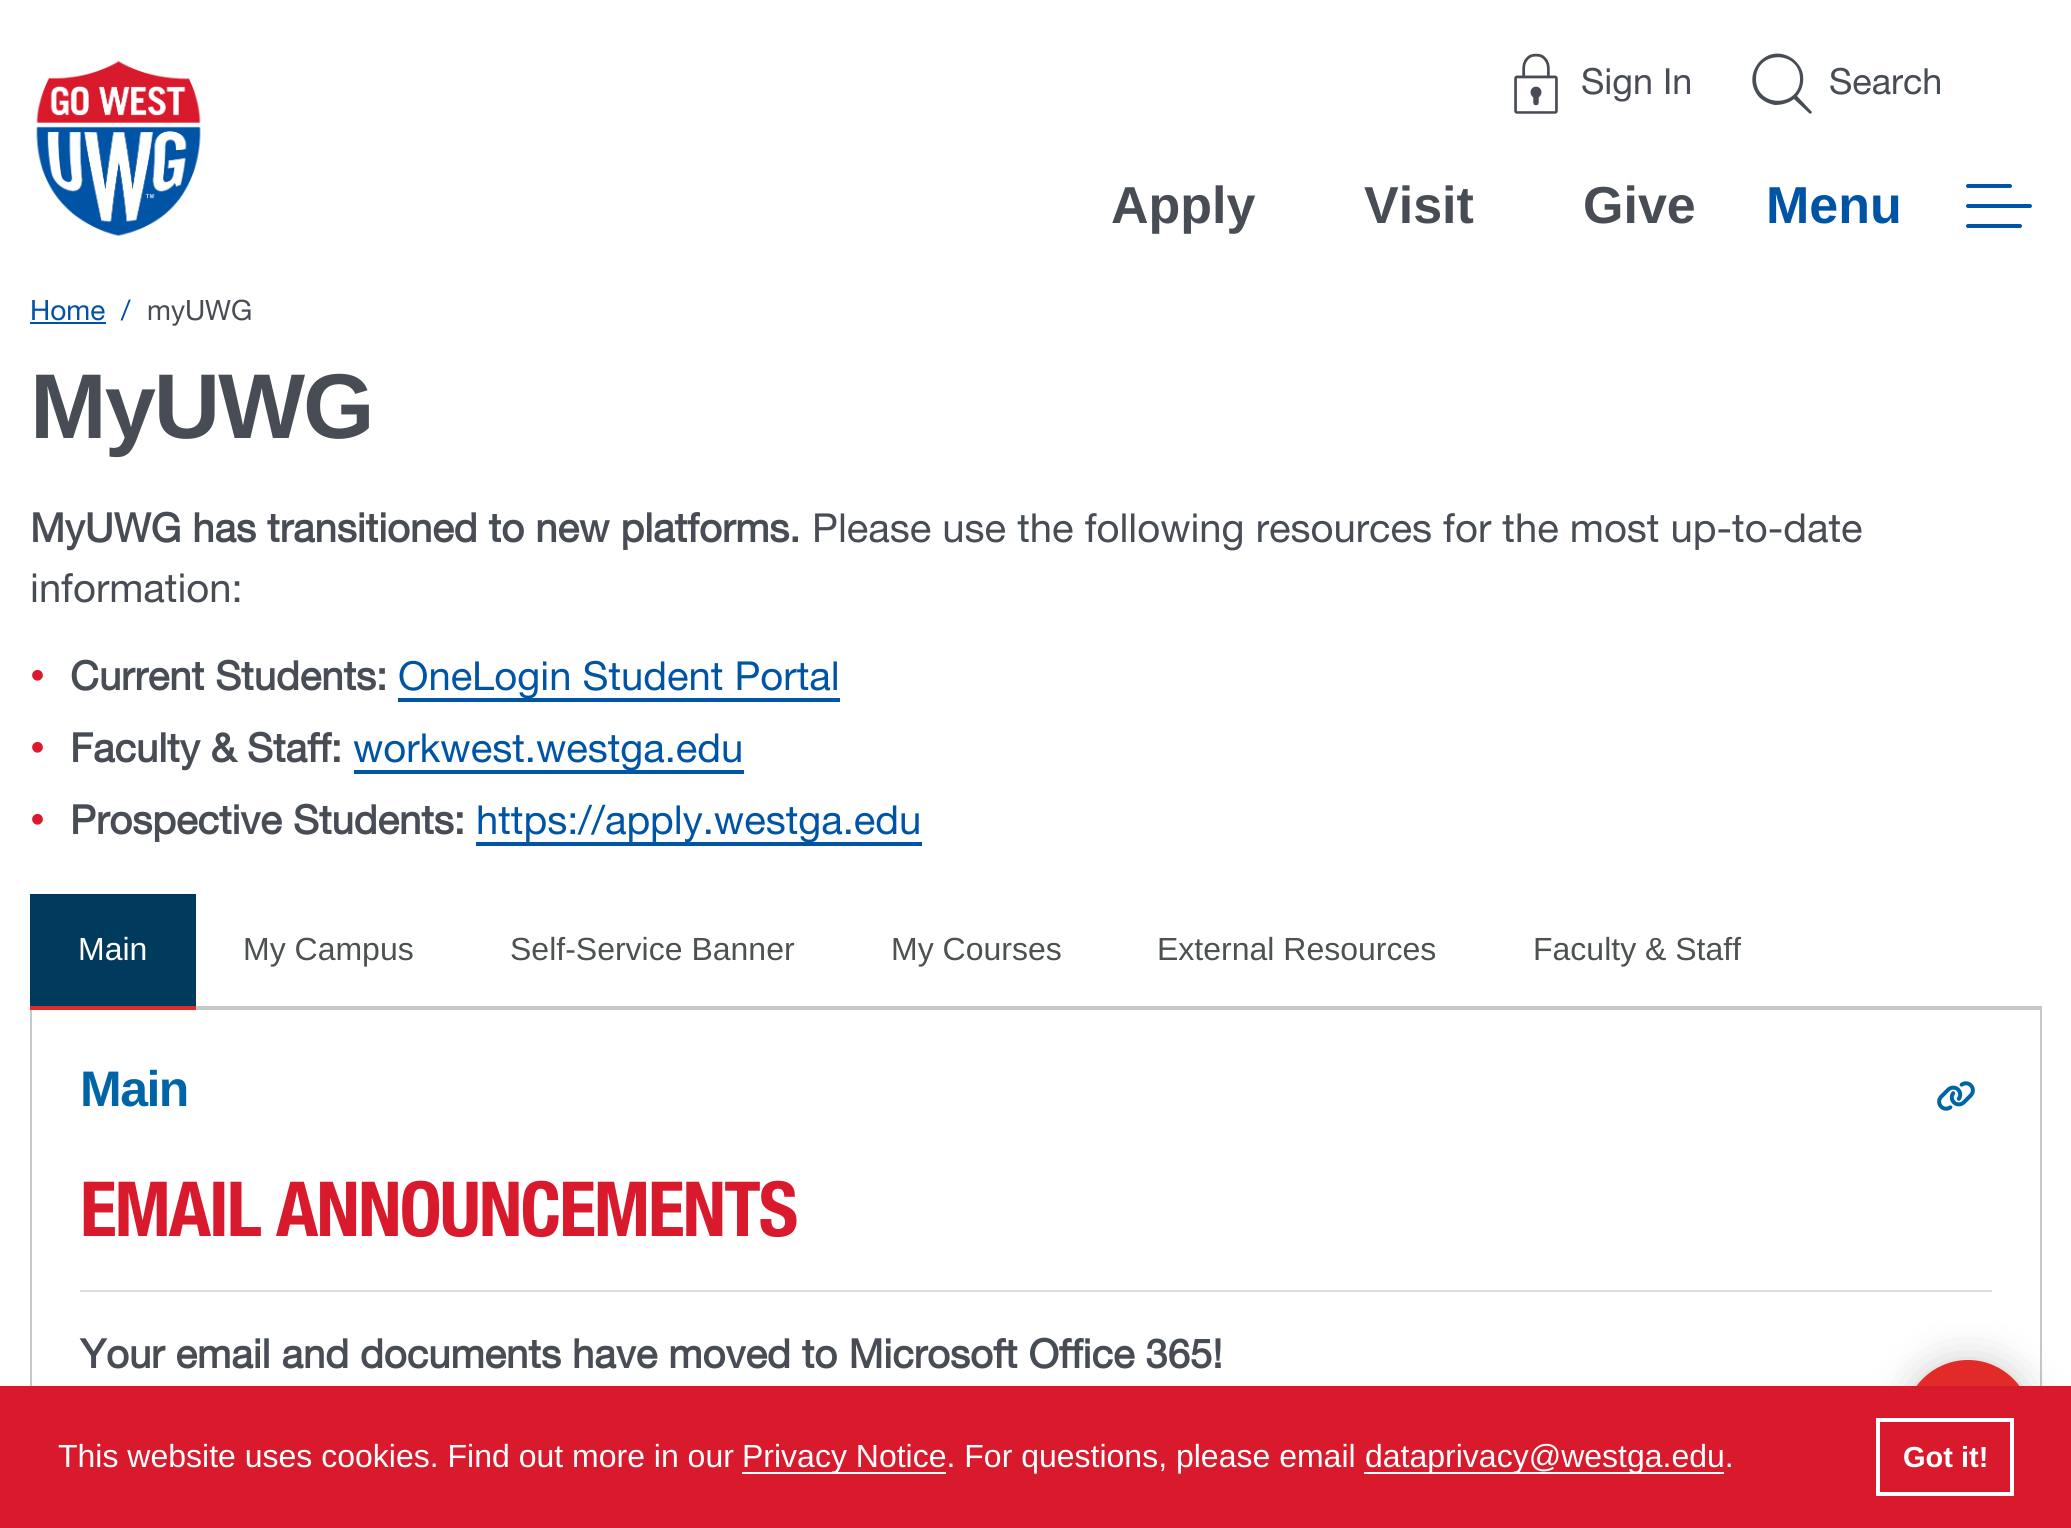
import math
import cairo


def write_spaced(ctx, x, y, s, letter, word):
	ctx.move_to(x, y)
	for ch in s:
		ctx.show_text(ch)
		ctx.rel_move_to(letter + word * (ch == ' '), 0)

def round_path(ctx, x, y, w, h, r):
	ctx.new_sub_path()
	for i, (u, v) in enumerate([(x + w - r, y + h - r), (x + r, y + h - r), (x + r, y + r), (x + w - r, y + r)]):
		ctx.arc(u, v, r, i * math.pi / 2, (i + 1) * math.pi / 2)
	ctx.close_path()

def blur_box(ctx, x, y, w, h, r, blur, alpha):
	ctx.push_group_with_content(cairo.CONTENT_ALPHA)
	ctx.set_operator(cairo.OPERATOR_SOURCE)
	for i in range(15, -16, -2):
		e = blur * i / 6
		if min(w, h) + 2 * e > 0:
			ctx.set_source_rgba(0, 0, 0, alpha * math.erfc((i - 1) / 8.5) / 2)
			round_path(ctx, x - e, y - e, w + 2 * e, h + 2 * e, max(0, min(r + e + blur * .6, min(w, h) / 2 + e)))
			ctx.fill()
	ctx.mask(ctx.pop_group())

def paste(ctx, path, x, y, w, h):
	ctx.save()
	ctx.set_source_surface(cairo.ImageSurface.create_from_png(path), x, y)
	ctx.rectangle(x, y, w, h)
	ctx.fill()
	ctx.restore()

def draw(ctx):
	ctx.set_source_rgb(1, 1, 1)
	ctx.paint()
	paste(ctx, 'media/1.png', 36, 60, 165, 177)
	paste(ctx, 'media/2.png', 1514, 53, 44, 61)
	ctx.select_font_face('Helvetica Neue')
	ctx.set_font_size(36)
	ctx.set_source_rgb(0.278, 0.298, 0.333)
	ctx.move_to(1581, 94)
	ctx.show_text('Sign In')
	ctx.new_path()
	ctx.move_to(1811, 111)
	ctx.line_to(1797, 96)
	ctx.curve_to(1802, 90, 1804, 83, 1803, 75)
	ctx.curve_to(1802, 68, 1797, 61, 1790, 57)
	ctx.curve_to(1765, 43, 1740, 75, 1759, 97)
	ctx.curve_to(1763, 101, 1769, 104, 1775, 105)
	ctx.curve_to(1782, 105, 1789, 103, 1794, 99)
	ctx.line_to(1809, 113)
	ctx.curve_to(1811, 115, 1813, 112, 1811, 111)
	ctx.close_path()
	ctx.move_to(1756, 79)
	ctx.curve_to(1756, 50, 1800, 50, 1800, 79)
	ctx.curve_to(1800, 108, 1756, 108, 1756, 79)
	ctx.close_path()
	ctx.fill()
	ctx.move_to(1829, 94)
	ctx.show_text('Search')
	ctx.select_font_face('Liberation Sans', cairo.FONT_SLANT_NORMAL, cairo.FONT_WEIGHT_BOLD)
	ctx.set_font_size(52)
	for x, y, s in [
		(1111, 223, 'Apply'),
		(1364, 223, 'Visit'),
		(1583, 223, 'Give'),
	]:
		ctx.move_to(x, y)
		ctx.show_text(s)
	ctx.set_source_rgb(0, 0.329, 0.651)
	ctx.move_to(1766, 223)
	ctx.show_text('Menu')
	round_path(ctx, 1966, 184, 46, 4, 2)
	ctx.fill()
	round_path(ctx, 1966, 204, 66, 4, 2)
	ctx.fill()
	round_path(ctx, 1966, 224, 56, 4, 2)
	ctx.fill()
	ctx.select_font_face('Helvetica Neue')
	ctx.set_font_size(28)
	ctx.move_to(30, 320)
	ctx.show_text('Home')
	ctx.rectangle(30, 322, 76, 2)
	ctx.fill()
	ctx.move_to(121, 320)
	ctx.show_text('/')
	ctx.set_source_rgb(0.278, 0.298, 0.333)
	ctx.move_to(147, 320)
	ctx.show_text('myUWG')
	ctx.select_font_face('Liberation Sans', cairo.FONT_SLANT_NORMAL, cairo.FONT_WEIGHT_BOLD)
	ctx.set_font_size(92)
	write_spaced(ctx, 30, 438, 'MyUWG', -2, 0)
	ctx.select_font_face('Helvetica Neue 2', cairo.FONT_SLANT_NORMAL, cairo.FONT_WEIGHT_BOLD)
	ctx.set_font_size(40)
	ctx.move_to(30, 542)
	ctx.show_text('MyUWG has transitioned to new platforms.')
	ctx.select_font_face('Helvetica Neue')
	ctx.move_to(812, 542)
	ctx.show_text('Please use the following resources for the most up-to-date')
	ctx.move_to(30, 602)
	ctx.show_text('information:')
	ctx.set_font_size(30)
	ctx.set_source_rgb(0.851, 0.098, 0.173)
	ctx.move_to(30, 686)
	ctx.show_text('•')
	ctx.select_font_face('Helvetica Neue 2', cairo.FONT_SLANT_NORMAL, cairo.FONT_WEIGHT_BOLD)
	ctx.set_font_size(40)
	ctx.set_source_rgb(0.278, 0.298, 0.333)
	ctx.move_to(70, 690)
	ctx.show_text('Current Students:')
	ctx.set_source_rgb(0, 0.329, 0.651)
	ctx.rectangle(398, 698, 442, 4)
	ctx.fill()
	ctx.select_font_face('Helvetica Neue')
	ctx.move_to(398, 690)
	ctx.show_text('OneLogin Student Portal')
	ctx.set_font_size(30)
	ctx.set_source_rgb(0.851, 0.098, 0.173)
	ctx.move_to(30, 758)
	ctx.show_text('•')
	ctx.select_font_face('Helvetica Neue 2', cairo.FONT_SLANT_NORMAL, cairo.FONT_WEIGHT_BOLD)
	ctx.set_font_size(40)
	ctx.set_source_rgb(0.278, 0.298, 0.333)
	ctx.move_to(70, 762)
	ctx.show_text('Faculty & Staff:')
	ctx.set_source_rgb(0, 0.329, 0.651)
	ctx.rectangle(354, 770, 390, 4)
	ctx.fill()
	ctx.select_font_face('Helvetica Neue')
	ctx.move_to(353, 762)
	ctx.show_text('workwest.westga.edu')
	ctx.set_font_size(30)
	ctx.set_source_rgb(0.851, 0.098, 0.173)
	ctx.move_to(30, 830)
	ctx.show_text('•')
	ctx.select_font_face('Helvetica Neue 2', cairo.FONT_SLANT_NORMAL, cairo.FONT_WEIGHT_BOLD)
	ctx.set_font_size(40)
	ctx.set_source_rgb(0.278, 0.298, 0.333)
	ctx.move_to(70, 834)
	ctx.show_text('Prospective Students:')
	ctx.set_source_rgb(0, 0.329, 0.651)
	ctx.rectangle(476, 842, 446, 4)
	ctx.fill()
	ctx.select_font_face('Helvetica Neue')
	ctx.move_to(476, 834)
	ctx.show_text('https://apply.westga.edu')
	ctx.set_source_rgb(0.78, 0.784, 0.792)
	ctx.rectangle(196, 1006, 1846, 4)
	ctx.fill()
	ctx.set_source_rgb(0, 0.227, 0.365)
	ctx.rectangle(30, 894, 166, 112)
	ctx.fill()
	ctx.select_font_face('Liberation Sans')
	ctx.set_font_size(32)
	ctx.set_source_rgb(1, 1, 1)
	ctx.move_to(78, 960)
	ctx.show_text('Main')
	ctx.set_source_rgb(0.886, 0.169, 0.157)
	ctx.rectangle(30, 1006, 166, 4)
	ctx.fill()
	ctx.set_source_rgb(0.302, 0.318, 0.322)
	for x, y, s in [
		(243, 960, 'My Campus'),
		(510, 960, 'Self-Service Banner'),
		(891, 960, 'My Courses'),
		(1157, 960, 'External Resources'),
		(1533, 960, 'Faculty & Staff'),
	]:
		ctx.move_to(x, y)
		ctx.show_text(s)
	ctx.set_source_rgb(0.78, 0.784, 0.792)
	ctx.rectangle(2040, 1010, 2, 376)
	ctx.fill()
	ctx.rectangle(30, 1010, 2, 376)
	ctx.fill()
	ctx.select_font_face('Liberation Sans', cairo.FONT_SLANT_NORMAL, cairo.FONT_WEIGHT_BOLD)
	ctx.set_font_size(50)
	ctx.set_source_rgb(0, 0.396, 0.651)
	write_spaced(ctx, 80, 1106, 'Main', -1.5, 0)
	paste(ctx, 'media/3.png', 1937, 1081, 38, 30)
	ctx.select_font_face('Helvetica Neue', cairo.FONT_SLANT_NORMAL, cairo.FONT_WEIGHT_BOLD)
	ctx.set_font_size(76)
	ctx.set_source_rgb(0.851, 0.098, 0.173)
	write_spaced(ctx, 80, 1236, 'EMAIL ANNOUNCEMENTS', -2, 0)
	ctx.set_source_rgb(0.867, 0.867, 0.867)
	ctx.rectangle(80, 1290, 1912, 2)
	ctx.fill()
	ctx.select_font_face('Helvetica Neue 2', cairo.FONT_SLANT_NORMAL, cairo.FONT_WEIGHT_BOLD)
	ctx.set_font_size(40)
	ctx.set_source_rgb(0.278, 0.298, 0.333)
	ctx.move_to(80, 1368)
	ctx.show_text('Your email and documents have moved to Microsoft Office 365!')
	ctx.set_source_rgb(0, 0, 0)
	blur_box(ctx, 1904, 1360, 128, 128, 64, 20, 0.2)
	ctx.set_source_rgb(0.886, 0.169, 0.157)
	ctx.arc(1968, 1424, 62, 0, 2 * math.pi)
	ctx.fill_preserve()
	ctx.set_line_width(4)
	ctx.stroke()
	ctx.set_source_rgb(0.851, 0.098, 0.173)
	ctx.rectangle(0, 1386, 2071, 142)
	ctx.fill()
	ctx.select_font_face('Liberation Sans')
	ctx.set_font_size(32)
	ctx.set_source_rgb(1, 1, 1)
	ctx.move_to(58, 1467)
	ctx.show_text('This website uses cookies. Find out more in our')
	ctx.rectangle(742, 1472, 204, 2)
	ctx.fill()
	ctx.move_to(742, 1467)
	ctx.show_text('Privacy Notice. For questions, please email')
	ctx.rectangle(1364, 1472, 360, 2)
	ctx.fill()
	ctx.move_to(1365, 1467)
	ctx.show_text('dataprivacy@westga.edu.')
	ctx.rectangle(1878, 1420, 134, 74)
	ctx.stroke()
	ctx.select_font_face('Liberation Sans', cairo.FONT_SLANT_NORMAL, cairo.FONT_WEIGHT_BOLD)
	ctx.set_font_size(29)
	ctx.move_to(1903, 1467)
	ctx.show_text('Got it!')


surface = cairo.ImageSurface(cairo.FORMAT_RGB24, 2071, 1528)
ctx = cairo.Context(surface)
options = cairo.FontOptions()
options.set_hint_metrics(cairo.HINT_METRICS_OFF)
options.set_hint_style(cairo.HINT_STYLE_NONE)
ctx.set_font_options(options)
ctx.set_miter_limit(4)
draw(ctx)
surface.write_to_png('image.png')
